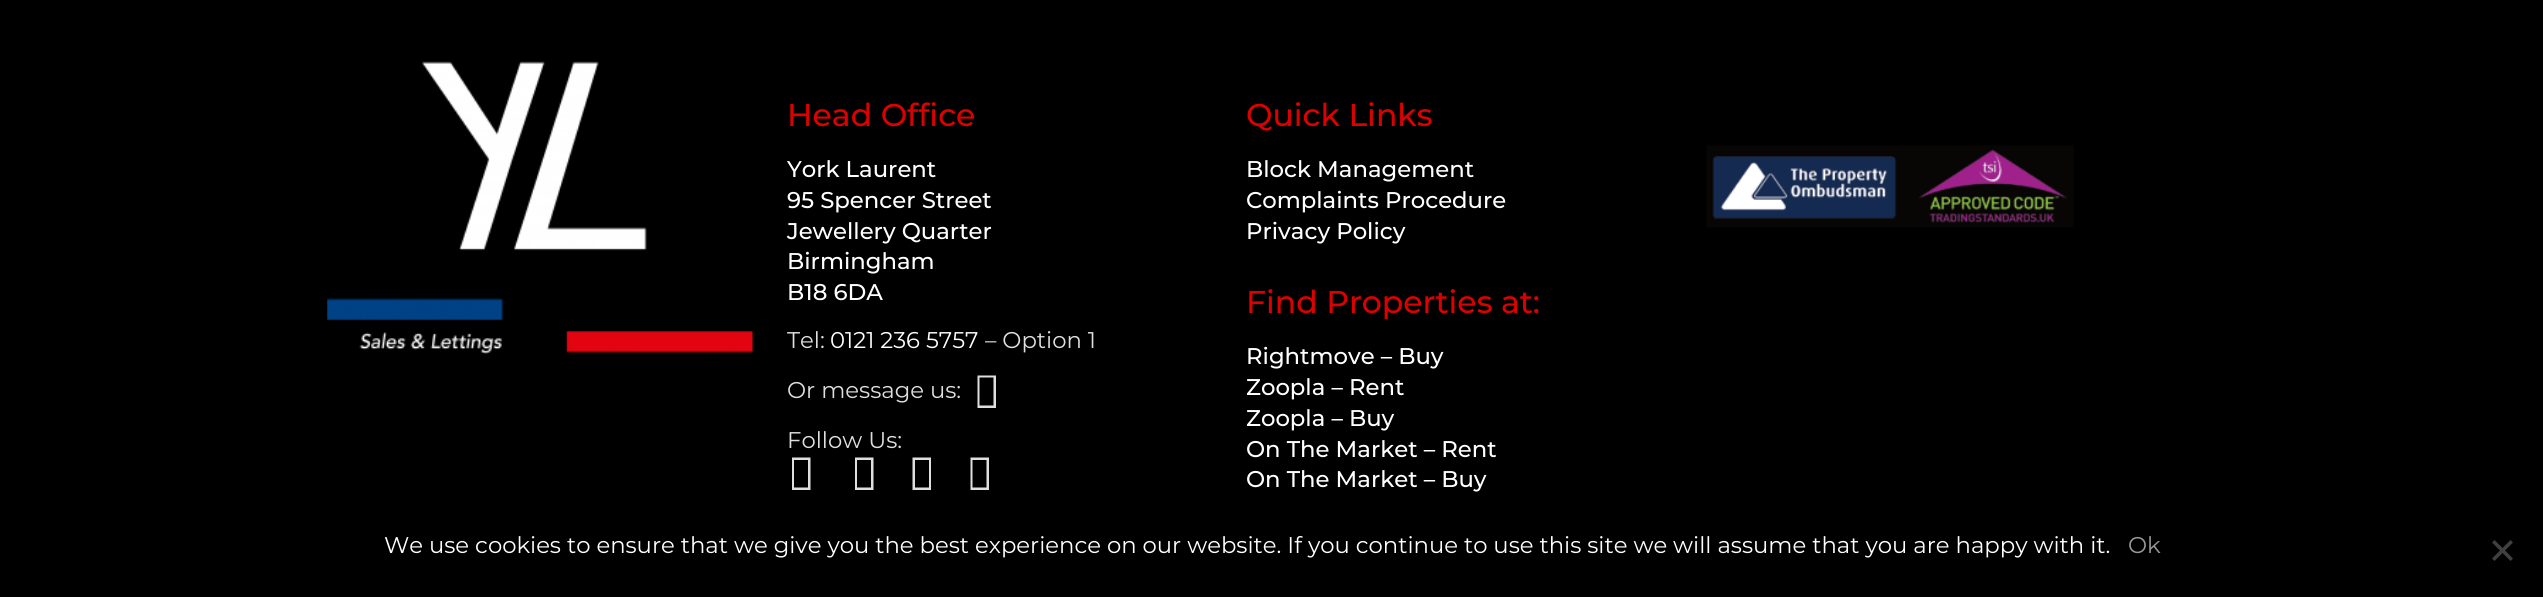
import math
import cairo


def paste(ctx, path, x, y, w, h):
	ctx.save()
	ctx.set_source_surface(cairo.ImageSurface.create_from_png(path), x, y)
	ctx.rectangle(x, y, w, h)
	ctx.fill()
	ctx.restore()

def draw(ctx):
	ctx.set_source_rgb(0, 0, 0)
	ctx.paint()
	paste(ctx, 'media/1.png', 327, 61, 426, 293)
	ctx.select_font_face('Montserrat Medium')
	ctx.set_font_size(31.5)
	ctx.set_source_rgb(0.867, 0, 0)
	ctx.move_to(787, 126)
	ctx.show_text('Head Office')
	ctx.set_font_size(22.75)
	ctx.set_source_rgb(1, 1, 1)
	for x, y, s in [
		(787, 177, 'York Laurent'),
		(787, 208, '95 Spencer Street'),
		(787, 239, 'Jewellery Quarter'),
		(787, 269, 'Birmingham'),
		(787, 300, 'B18 6DA'),
	]:
		ctx.move_to(x, y)
		ctx.show_text(s)
	ctx.select_font_face('Montserrat')
	ctx.set_source_rgb(0.875, 0.875, 0.875)
	ctx.move_to(787, 348)
	ctx.show_text('Tel:')
	ctx.set_source_rgb(1, 1, 1)
	ctx.move_to(830, 348)
	ctx.show_text('0121 236 5757')
	ctx.set_source_rgb(0.875, 0.875, 0.875)
	ctx.move_to(985, 348)
	ctx.show_text('– Option 1')
	ctx.move_to(787, 398)
	ctx.show_text('Or message us:')
	ctx.new_path()
	ctx.move_to(977.5, 408)
	ctx.line_to(977.5, 375.5)
	ctx.line_to(996, 375.5)
	ctx.line_to(996, 408)
	ctx.close_path()
	ctx.move_to(979.5, 405.5)
	ctx.line_to(993.5, 405.5)
	ctx.line_to(993.5, 377.5)
	ctx.line_to(979.5, 377.5)
	ctx.close_path()
	ctx.fill()
	ctx.move_to(787, 448)
	ctx.show_text('Follow Us:')
	ctx.new_path()
	ctx.move_to(792, 490)
	ctx.line_to(792, 457.5)
	ctx.line_to(810.5, 457.5)
	ctx.line_to(810.5, 490)
	ctx.close_path()
	ctx.move_to(794, 487.5)
	ctx.line_to(808, 487.5)
	ctx.line_to(808, 460)
	ctx.line_to(794, 460)
	ctx.close_path()
	ctx.fill()
	ctx.new_path()
	ctx.move_to(855, 490)
	ctx.line_to(855, 457.5)
	ctx.line_to(873.5, 457.5)
	ctx.line_to(873.5, 490)
	ctx.close_path()
	ctx.move_to(857, 487.5)
	ctx.line_to(871, 487.5)
	ctx.line_to(871, 460)
	ctx.line_to(857, 460)
	ctx.close_path()
	ctx.fill()
	ctx.new_path()
	ctx.move_to(912.5, 490)
	ctx.line_to(912.5, 457.5)
	ctx.line_to(931, 457.5)
	ctx.line_to(931, 490)
	ctx.close_path()
	ctx.move_to(915, 487.5)
	ctx.line_to(929, 487.5)
	ctx.line_to(929, 460)
	ctx.line_to(915, 460)
	ctx.close_path()
	ctx.fill()
	ctx.new_path()
	ctx.move_to(970.5, 490)
	ctx.line_to(970.5, 457.5)
	ctx.line_to(989, 457.5)
	ctx.line_to(989, 490)
	ctx.close_path()
	ctx.move_to(972.5, 487.5)
	ctx.line_to(986.5, 487.5)
	ctx.line_to(986.5, 460)
	ctx.line_to(972.5, 460)
	ctx.close_path()
	ctx.fill()
	ctx.select_font_face('Montserrat Medium')
	ctx.set_font_size(31.5)
	ctx.set_source_rgb(0.867, 0, 0)
	ctx.move_to(1246, 126)
	ctx.show_text('Quick Links')
	ctx.set_font_size(22.75)
	ctx.set_source_rgb(1, 1, 1)
	for x, y, s in [
		(1246, 177, 'Block Management'),
		(1246, 208, 'Complaints Procedure'),
		(1246, 239, 'Privacy Policy'),
	]:
		ctx.move_to(x, y)
		ctx.show_text(s)
	ctx.set_font_size(31.5)
	ctx.set_source_rgb(0.867, 0, 0)
	ctx.move_to(1246, 313)
	ctx.show_text('Find Properties at:')
	ctx.set_font_size(22.75)
	ctx.set_source_rgb(1, 1, 1)
	for x, y, s in [
		(1246, 364, 'Rightmove – Buy'),
		(1246, 395, 'Zoopla – Rent'),
		(1246, 426, 'Zoopla – Buy'),
		(1246, 457, 'On The Market – Rent'),
		(1246, 487, 'On The Market – Buy'),
	]:
		ctx.move_to(x, y)
		ctx.show_text(s)
	paste(ctx, 'media/2.png', 1706, 145, 368, 83)
	ctx.select_font_face('Montserrat')
	ctx.move_to(384, 553)
	ctx.show_text('We use cookies to ensure that we give you the best experience on our website. If you continue to use this site we will assume that you are happy with it.')
	ctx.set_source_rgb(0.6, 0.6, 0.6)
	ctx.move_to(2128, 553)
	ctx.show_text('Ok')
	ctx.set_source_rgb(0.251, 0.251, 0.251)
	ctx.new_path()
	ctx.move_to(2510.5, 540)
	ctx.line_to(2513, 542.5)
	ctx.line_to(2494.5, 561)
	ctx.line_to(2492, 558.5)
	ctx.close_path()
	ctx.fill()
	ctx.new_path()
	ctx.move_to(2492, 542.5)
	ctx.line_to(2494.5, 540)
	ctx.line_to(2513, 558.5)
	ctx.line_to(2510.5, 561)
	ctx.close_path()
	ctx.fill()


surface = cairo.ImageSurface(cairo.FORMAT_RGB24, 2543, 597)
ctx = cairo.Context(surface)
options = cairo.FontOptions()
options.set_hint_metrics(cairo.HINT_METRICS_OFF)
options.set_hint_style(cairo.HINT_STYLE_NONE)
ctx.set_font_options(options)
ctx.set_miter_limit(4)
draw(ctx)
surface.write_to_png('image.png')
